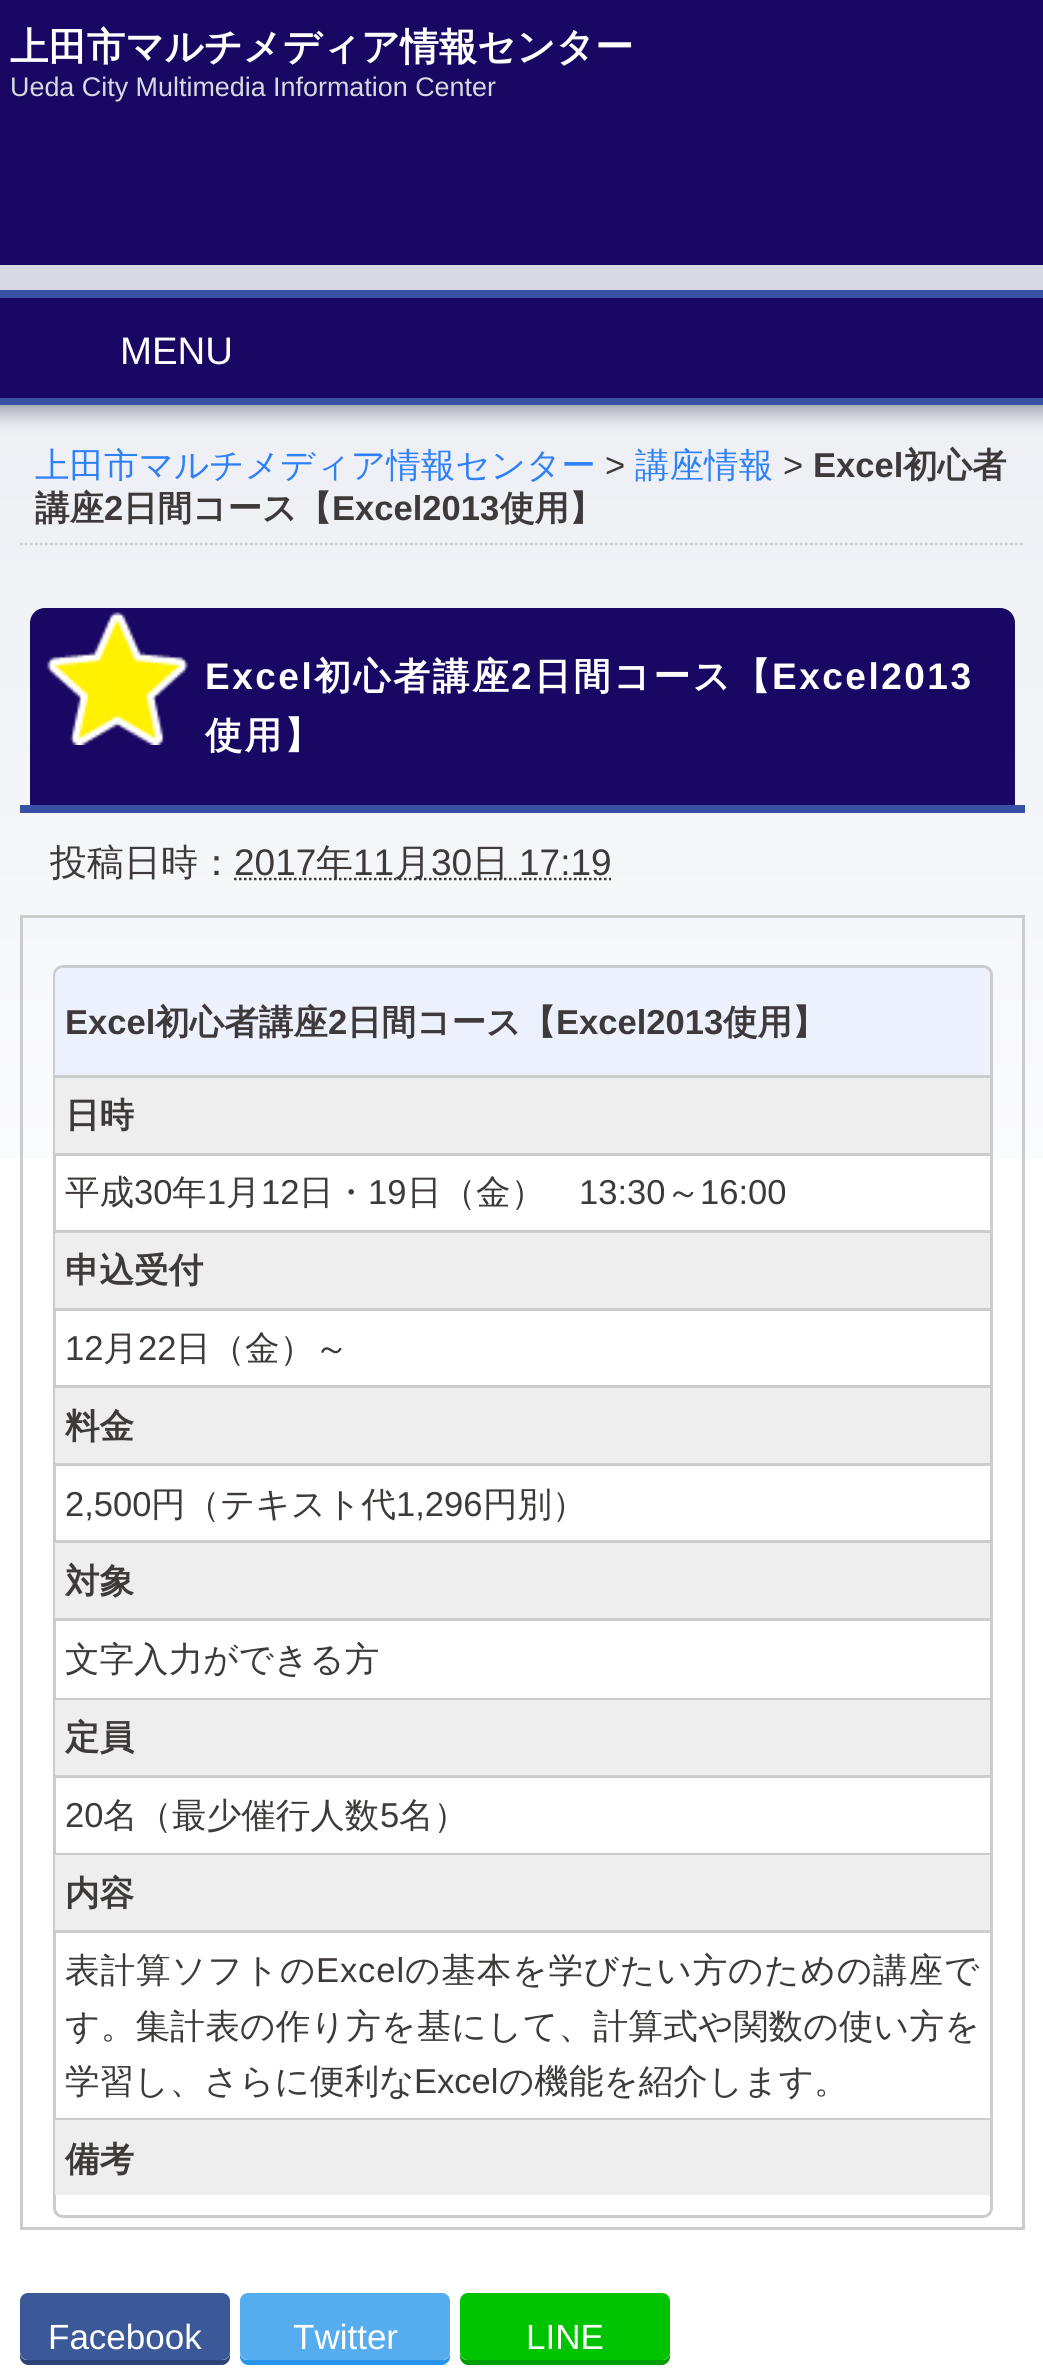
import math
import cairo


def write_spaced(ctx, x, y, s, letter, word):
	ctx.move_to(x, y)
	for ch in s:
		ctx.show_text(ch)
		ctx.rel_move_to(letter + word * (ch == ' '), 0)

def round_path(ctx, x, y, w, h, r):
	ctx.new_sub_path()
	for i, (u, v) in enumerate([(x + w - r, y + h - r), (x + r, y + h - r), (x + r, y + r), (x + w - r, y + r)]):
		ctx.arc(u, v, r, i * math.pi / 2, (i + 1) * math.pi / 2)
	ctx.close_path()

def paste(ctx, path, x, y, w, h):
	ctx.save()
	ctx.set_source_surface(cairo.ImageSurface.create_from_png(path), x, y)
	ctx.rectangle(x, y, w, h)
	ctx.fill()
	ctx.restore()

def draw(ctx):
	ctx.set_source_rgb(1, 1, 1)
	ctx.paint()
	ctx.set_source_rgb(0.094, 0.031, 0.388)
	ctx.rectangle(0, 0, 1043, 265)
	ctx.fill()
	ctx.select_font_face('WenQuanYi Zen Hei', cairo.FONT_SLANT_NORMAL, cairo.FONT_WEIGHT_BOLD)
	ctx.set_font_size(38.4)
	ctx.set_source_rgb(1, 1, 1)
	ctx.move_to(10, 60)
	ctx.show_text('上田市マルチメディア情報センター')
	ctx.select_font_face('Liberation Sans')
	ctx.set_font_size(26.9)
	ctx.set_source_rgb(0.843, 0.855, 0.878)
	ctx.move_to(10, 96)
	ctx.show_text('Ueda City Multimedia Information Center')
	ctx.rectangle(0, 265, 1043, 25)
	ctx.fill()
	ctx.set_source_rgb(0.224, 0.318, 0.647)
	ctx.rectangle(0, 398, 1043, 7)
	ctx.fill()
	ctx.set_source_rgb(0.094, 0.031, 0.388)
	ctx.rectangle(0, 298, 1043, 100)
	ctx.fill()
	ctx.set_source_rgb(0.224, 0.318, 0.647)
	ctx.rectangle(0, 290, 1043, 8)
	ctx.fill()
	ctx.set_font_size(38.4)
	ctx.set_source_rgb(1, 1, 1)
	ctx.move_to(120, 364)
	ctx.show_text('MENU')
	paste(ctx, 'media/1.png', 0, 405, 1043, 754)
	ctx.new_path()
	ctx.move_to(20, 544)
	ctx.line_to(1025, 544)
	ctx.set_source_rgb(0.8, 0.8, 0.8)
	ctx.set_line_width(2.5)
	ctx.set_dash([2.5, 2.5])
	ctx.stroke()
	ctx.select_font_face('WenQuanYi Zen Hei Medium')
	ctx.set_font_size(34.55)
	ctx.set_source_rgb(0.184, 0.506, 0.973)
	ctx.move_to(35, 477)
	ctx.show_text('上田市マルチメディア情報センター')
	ctx.select_font_face('Liberation Sans')
	ctx.set_source_rgb(0.243, 0.227, 0.224)
	ctx.move_to(605, 477)
	ctx.show_text('>')
	ctx.select_font_face('WenQuanYi Zen Hei Medium')
	ctx.set_source_rgb(0.184, 0.506, 0.973)
	ctx.move_to(635, 477)
	ctx.show_text('講座情報')
	ctx.select_font_face('Liberation Sans')
	ctx.set_source_rgb(0.243, 0.227, 0.224)
	ctx.move_to(783, 477)
	ctx.show_text('>')
	ctx.select_font_face('Liberation Sans', cairo.FONT_SLANT_NORMAL, cairo.FONT_WEIGHT_BOLD)
	ctx.move_to(813, 477)
	ctx.show_text('Excel')
	ctx.select_font_face('WenQuanYi Zen Hei', cairo.FONT_SLANT_NORMAL, cairo.FONT_WEIGHT_BOLD)
	ctx.move_to(903, 477)
	ctx.show_text('初心者')
	ctx.move_to(35, 520)
	ctx.show_text('講座')
	ctx.select_font_face('Liberation Sans', cairo.FONT_SLANT_NORMAL, cairo.FONT_WEIGHT_BOLD)
	ctx.move_to(104, 520)
	ctx.show_text('2')
	ctx.select_font_face('WenQuanYi Zen Hei', cairo.FONT_SLANT_NORMAL, cairo.FONT_WEIGHT_BOLD)
	ctx.move_to(123, 520)
	ctx.show_text('日間コース【')
	ctx.select_font_face('Liberation Sans', cairo.FONT_SLANT_NORMAL, cairo.FONT_WEIGHT_BOLD)
	ctx.move_to(332, 520)
	ctx.show_text('Excel2013')
	ctx.select_font_face('WenQuanYi Zen Hei', cairo.FONT_SLANT_NORMAL, cairo.FONT_WEIGHT_BOLD)
	ctx.move_to(500, 520)
	ctx.show_text('使用】')
	ctx.set_source_rgb(0.224, 0.318, 0.647)
	ctx.rectangle(20, 805, 1005, 8)
	ctx.fill()
	ctx.set_source_rgb(0.094, 0.031, 0.388)
	ctx.new_path()
	ctx.move_to(45, 608)
	ctx.line_to(1000, 608)
	ctx.curve_to(1008.5, 608, 1015, 614.5, 1015, 623)
	ctx.line_to(1015, 805)
	ctx.line_to(30, 805)
	ctx.line_to(30, 623)
	ctx.curve_to(30, 614.5, 36.5, 608, 45, 608)
	ctx.close_path()
	ctx.fill()
	paste(ctx, 'media/2.png', 46, 611, 143, 134)
	ctx.select_font_face('Liberation Sans', cairo.FONT_SLANT_NORMAL, cairo.FONT_WEIGHT_BOLD)
	ctx.set_font_size(37)
	ctx.set_source_rgb(1, 1, 1)
	write_spaced(ctx, 205, 689, 'Excel', 2.5, 0)
	ctx.select_font_face('WenQuanYi Zen Hei', cairo.FONT_SLANT_NORMAL, cairo.FONT_WEIGHT_BOLD)
	write_spaced(ctx, 314, 689, '初心者講座', 2.5, 0)
	ctx.select_font_face('Liberation Sans', cairo.FONT_SLANT_NORMAL, cairo.FONT_WEIGHT_BOLD)
	write_spaced(ctx, 511, 689, '2', 2.5, 0)
	ctx.select_font_face('WenQuanYi Zen Hei', cairo.FONT_SLANT_NORMAL, cairo.FONT_WEIGHT_BOLD)
	write_spaced(ctx, 534, 689, '日間コース【', 2.5, 0)
	ctx.select_font_face('Liberation Sans', cairo.FONT_SLANT_NORMAL, cairo.FONT_WEIGHT_BOLD)
	write_spaced(ctx, 772, 689, 'Excel2013', 2.5, 0)
	ctx.select_font_face('WenQuanYi Zen Hei', cairo.FONT_SLANT_NORMAL, cairo.FONT_WEIGHT_BOLD)
	write_spaced(ctx, 205, 748, '使用】', 2.5, 0)
	ctx.select_font_face('WenQuanYi Zen Hei Medium')
	ctx.set_source_rgb(0.243, 0.227, 0.224)
	ctx.move_to(50, 875)
	ctx.show_text('投稿日時：')
	ctx.select_font_face('Liberation Sans')
	ctx.move_to(234, 875)
	ctx.show_text('2017')
	ctx.new_path()
	ctx.move_to(234, 879)
	ctx.line_to(611, 879)
	ctx.stroke()
	ctx.select_font_face('WenQuanYi Zen Hei Medium')
	ctx.move_to(316, 875)
	ctx.show_text('年')
	ctx.select_font_face('Liberation Sans')
	ctx.move_to(353, 875)
	ctx.show_text('11')
	ctx.select_font_face('WenQuanYi Zen Hei Medium')
	ctx.move_to(394, 875)
	ctx.show_text('月')
	ctx.select_font_face('Liberation Sans')
	ctx.move_to(431, 875)
	ctx.show_text('30')
	ctx.select_font_face('WenQuanYi Zen Hei Medium')
	ctx.move_to(472, 875)
	ctx.show_text('日')
	ctx.select_font_face('Liberation Sans')
	ctx.move_to(519, 875)
	ctx.show_text('17:19')
	ctx.rectangle(21.5, 916.5, 1002, 1312)
	ctx.set_source_rgb(0.8, 0.8, 0.8)
	ctx.set_line_width(3)
	ctx.set_dash([])
	ctx.stroke()
	round_path(ctx, 54.5, 966.5, 937, 1250, 8.5)
	ctx.stroke()
	ctx.set_source_rgb(0.929, 0.945, 0.996)
	ctx.new_path()
	ctx.move_to(63, 968)
	ctx.line_to(982, 968)
	ctx.curve_to(986.5, 968, 990, 971.5, 990, 976)
	ctx.line_to(990, 1078)
	ctx.line_to(55, 1078)
	ctx.line_to(55, 976)
	ctx.curve_to(55, 971.5, 58.5, 968, 63, 968)
	ctx.close_path()
	ctx.fill()
	ctx.set_source_rgb(0.8, 0.8, 0.8)
	ctx.rectangle(55, 1075, 935, 3)
	ctx.fill()
	ctx.select_font_face('Liberation Sans', cairo.FONT_SLANT_NORMAL, cairo.FONT_WEIGHT_BOLD)
	ctx.set_font_size(34.55)
	ctx.set_source_rgb(0.243, 0.227, 0.224)
	ctx.move_to(65, 1034)
	ctx.show_text('Excel')
	ctx.select_font_face('WenQuanYi Zen Hei', cairo.FONT_SLANT_NORMAL, cairo.FONT_WEIGHT_BOLD)
	ctx.move_to(155, 1034)
	ctx.show_text('初心者講座')
	ctx.select_font_face('Liberation Sans', cairo.FONT_SLANT_NORMAL, cairo.FONT_WEIGHT_BOLD)
	ctx.move_to(328, 1034)
	ctx.show_text('2')
	ctx.select_font_face('WenQuanYi Zen Hei', cairo.FONT_SLANT_NORMAL, cairo.FONT_WEIGHT_BOLD)
	ctx.move_to(347, 1034)
	ctx.show_text('日間コース【')
	ctx.select_font_face('Liberation Sans', cairo.FONT_SLANT_NORMAL, cairo.FONT_WEIGHT_BOLD)
	ctx.move_to(556, 1034)
	ctx.show_text('Excel2013')
	ctx.select_font_face('WenQuanYi Zen Hei', cairo.FONT_SLANT_NORMAL, cairo.FONT_WEIGHT_BOLD)
	ctx.move_to(723, 1034)
	ctx.show_text('使用】')
	ctx.set_source_rgb(0.933, 0.933, 0.933)
	ctx.rectangle(55, 1078, 935, 75)
	ctx.fill()
	ctx.set_source_rgb(0.8, 0.8, 0.8)
	ctx.rectangle(55, 1153, 935, 3)
	ctx.fill()
	ctx.set_source_rgb(0.243, 0.227, 0.224)
	ctx.move_to(65, 1127)
	ctx.show_text('日時')
	ctx.set_source_rgb(0.8, 0.8, 0.8)
	ctx.rectangle(55, 1230, 935, 3)
	ctx.fill()
	ctx.select_font_face('WenQuanYi Zen Hei Medium')
	ctx.set_source_rgb(0.243, 0.227, 0.224)
	ctx.move_to(65, 1204)
	ctx.show_text('平成')
	ctx.select_font_face('Liberation Sans')
	ctx.move_to(134, 1204)
	ctx.show_text('30')
	ctx.select_font_face('WenQuanYi Zen Hei Medium')
	ctx.move_to(172, 1204)
	ctx.show_text('年')
	ctx.select_font_face('Liberation Sans')
	ctx.move_to(207, 1204)
	ctx.show_text('1')
	ctx.select_font_face('WenQuanYi Zen Hei Medium')
	ctx.move_to(226, 1204)
	ctx.show_text('月')
	ctx.select_font_face('Liberation Sans')
	ctx.move_to(261, 1204)
	ctx.show_text('12')
	ctx.select_font_face('WenQuanYi Zen Hei Medium')
	ctx.move_to(299, 1204)
	ctx.show_text('日・')
	ctx.select_font_face('Liberation Sans')
	ctx.move_to(368, 1204)
	ctx.show_text('19')
	ctx.select_font_face('WenQuanYi Zen Hei Medium')
	ctx.move_to(407, 1204)
	ctx.show_text('日（金）')
	ctx.select_font_face('Liberation Sans')
	ctx.move_to(579, 1204)
	ctx.show_text('13:30')
	ctx.select_font_face('WenQuanYi Zen Hei Medium')
	ctx.move_to(666, 1204)
	ctx.show_text('～')
	ctx.select_font_face('Liberation Sans')
	ctx.move_to(700, 1204)
	ctx.show_text('16:00')
	ctx.set_source_rgb(0.933, 0.933, 0.933)
	ctx.rectangle(55, 1233, 935, 75)
	ctx.fill()
	ctx.set_source_rgb(0.8, 0.8, 0.8)
	ctx.rectangle(55, 1308, 935, 3)
	ctx.fill()
	ctx.select_font_face('WenQuanYi Zen Hei', cairo.FONT_SLANT_NORMAL, cairo.FONT_WEIGHT_BOLD)
	ctx.set_source_rgb(0.243, 0.227, 0.224)
	ctx.move_to(65, 1282)
	ctx.show_text('申込受付')
	ctx.set_source_rgb(0.8, 0.8, 0.8)
	ctx.rectangle(55, 1385, 935, 3)
	ctx.fill()
	ctx.select_font_face('Liberation Sans')
	ctx.set_source_rgb(0.243, 0.227, 0.224)
	ctx.move_to(65, 1360)
	ctx.show_text('12')
	ctx.select_font_face('WenQuanYi Zen Hei Medium')
	ctx.move_to(103, 1360)
	ctx.show_text('月')
	ctx.select_font_face('Liberation Sans')
	ctx.move_to(138, 1360)
	ctx.show_text('22')
	ctx.select_font_face('WenQuanYi Zen Hei Medium')
	ctx.move_to(176, 1360)
	ctx.show_text('日（金）～')
	ctx.set_source_rgb(0.933, 0.933, 0.933)
	ctx.rectangle(55, 1388, 935, 75)
	ctx.fill()
	ctx.set_source_rgb(0.8, 0.8, 0.8)
	ctx.rectangle(55, 1463, 935, 3)
	ctx.fill()
	ctx.select_font_face('WenQuanYi Zen Hei', cairo.FONT_SLANT_NORMAL, cairo.FONT_WEIGHT_BOLD)
	ctx.set_source_rgb(0.243, 0.227, 0.224)
	ctx.move_to(65, 1438)
	ctx.show_text('料金')
	ctx.set_source_rgb(0.8, 0.8, 0.8)
	ctx.rectangle(55, 1540, 935, 3)
	ctx.fill()
	ctx.select_font_face('Liberation Sans')
	ctx.set_source_rgb(0.243, 0.227, 0.224)
	ctx.move_to(65, 1516)
	ctx.show_text('2,500')
	ctx.select_font_face('WenQuanYi Zen Hei Medium')
	ctx.move_to(151, 1516)
	ctx.show_text('円（テキスト代')
	ctx.select_font_face('Liberation Sans')
	ctx.move_to(396, 1516)
	ctx.show_text('1,296')
	ctx.select_font_face('WenQuanYi Zen Hei Medium')
	ctx.move_to(483, 1516)
	ctx.show_text('円別）')
	ctx.set_source_rgb(0.933, 0.933, 0.933)
	ctx.rectangle(55, 1543, 935, 75)
	ctx.fill()
	ctx.set_source_rgb(0.8, 0.8, 0.8)
	ctx.rectangle(55, 1618, 935, 3)
	ctx.fill()
	ctx.select_font_face('WenQuanYi Zen Hei', cairo.FONT_SLANT_NORMAL, cairo.FONT_WEIGHT_BOLD)
	ctx.set_source_rgb(0.243, 0.227, 0.224)
	ctx.move_to(65, 1593)
	ctx.show_text('対象')
	ctx.set_source_rgb(0.8, 0.8, 0.8)
	ctx.rectangle(55, 1698, 935, 2)
	ctx.fill()
	ctx.select_font_face('WenQuanYi Zen Hei Medium')
	ctx.set_source_rgb(0.243, 0.227, 0.224)
	ctx.move_to(65, 1671)
	ctx.show_text('文字入力ができる方')
	ctx.set_source_rgb(0.933, 0.933, 0.933)
	ctx.rectangle(55, 1700, 935, 75)
	ctx.fill()
	ctx.set_source_rgb(0.8, 0.8, 0.8)
	ctx.rectangle(55, 1775, 935, 3)
	ctx.fill()
	ctx.select_font_face('WenQuanYi Zen Hei', cairo.FONT_SLANT_NORMAL, cairo.FONT_WEIGHT_BOLD)
	ctx.set_source_rgb(0.243, 0.227, 0.224)
	ctx.move_to(65, 1749)
	ctx.show_text('定員')
	ctx.set_source_rgb(0.8, 0.8, 0.8)
	ctx.rectangle(55, 1853, 935, 2)
	ctx.fill()
	ctx.select_font_face('Liberation Sans')
	ctx.set_source_rgb(0.243, 0.227, 0.224)
	ctx.move_to(65, 1827)
	ctx.show_text('20')
	ctx.select_font_face('WenQuanYi Zen Hei Medium')
	ctx.move_to(103, 1827)
	ctx.show_text('名（最少催行人数')
	ctx.select_font_face('Liberation Sans')
	ctx.move_to(380, 1827)
	ctx.show_text('5')
	ctx.select_font_face('WenQuanYi Zen Hei Medium')
	ctx.move_to(399, 1827)
	ctx.show_text('名）')
	ctx.set_source_rgb(0.933, 0.933, 0.933)
	ctx.rectangle(55, 1855, 935, 75)
	ctx.fill()
	ctx.set_source_rgb(0.8, 0.8, 0.8)
	ctx.rectangle(55, 1930, 935, 3)
	ctx.fill()
	ctx.select_font_face('WenQuanYi Zen Hei', cairo.FONT_SLANT_NORMAL, cairo.FONT_WEIGHT_BOLD)
	ctx.set_source_rgb(0.243, 0.227, 0.224)
	ctx.move_to(65, 1905)
	ctx.show_text('内容')
	ctx.set_source_rgb(0.8, 0.8, 0.8)
	ctx.rectangle(55, 2118, 935, 2)
	ctx.fill()
	ctx.select_font_face('WenQuanYi Zen Hei Medium')
	ctx.set_source_rgb(0.243, 0.227, 0.224)
	write_spaced(ctx, 65, 1982, '表計算ソフトの', 0.9, 0)
	ctx.select_font_face('Liberation Sans')
	write_spaced(ctx, 316, 1982, 'Excel', 0.9, 0)
	ctx.select_font_face('WenQuanYi Zen Hei Medium')
	write_spaced(ctx, 405, 1982, 'の基本を学びたい方のための講座で', 0.9, 0)
	write_spaced(ctx, 65, 2038, 'す。集計表の作り方を基にして、計算式や関数の使い方を', 0.3, 0)
	ctx.move_to(65, 2093)
	ctx.show_text('学習し、さらに便利な')
	ctx.select_font_face('Liberation Sans')
	ctx.move_to(414, 2093)
	ctx.show_text('Excel')
	ctx.select_font_face('WenQuanYi Zen Hei Medium')
	ctx.move_to(499, 2093)
	ctx.show_text('の機能を紹介します。')
	ctx.set_source_rgb(0.933, 0.933, 0.933)
	ctx.rectangle(55, 2120, 935, 75)
	ctx.fill()
	ctx.select_font_face('WenQuanYi Zen Hei', cairo.FONT_SLANT_NORMAL, cairo.FONT_WEIGHT_BOLD)
	ctx.set_source_rgb(0.243, 0.227, 0.224)
	ctx.move_to(65, 2171)
	ctx.show_text('備考')
	ctx.set_source_rgb(0.176, 0.263, 0.451)
	ctx.new_path()
	ctx.move_to(20, 2352)
	ctx.line_to(20, 2357)
	ctx.curve_to(20, 2361, 24, 2365, 28, 2365)
	ctx.line_to(222, 2365)
	ctx.curve_to(226, 2365, 230, 2361, 230, 2357)
	ctx.line_to(230, 2352)
	ctx.curve_to(230, 2357, 227, 2360, 222, 2360)
	ctx.line_to(28, 2360)
	ctx.curve_to(23, 2360, 20, 2357, 20, 2352)
	ctx.close_path()
	ctx.fill()
	ctx.set_source_rgb(0.231, 0.349, 0.596)
	round_path(ctx, 20, 2293, 210, 67, 8)
	ctx.fill()
	ctx.select_font_face('Liberation Sans')
	ctx.set_font_size(35)
	ctx.set_source_rgb(1, 1, 1)
	ctx.move_to(48, 2349)
	ctx.show_text('Facebook')
	ctx.set_source_rgb(0.153, 0.584, 0.914)
	ctx.new_path()
	ctx.move_to(240, 2352)
	ctx.line_to(240, 2357)
	ctx.curve_to(240, 2361, 244, 2365, 248, 2365)
	ctx.line_to(442, 2365)
	ctx.curve_to(446, 2365, 450, 2361, 450, 2357)
	ctx.line_to(450, 2352)
	ctx.curve_to(450, 2357, 447, 2360, 442, 2360)
	ctx.line_to(248, 2360)
	ctx.curve_to(243, 2360, 240, 2357, 240, 2352)
	ctx.close_path()
	ctx.fill()
	ctx.set_source_rgb(0.333, 0.675, 0.933)
	round_path(ctx, 240, 2293, 210, 67, 8)
	ctx.fill()
	ctx.set_source_rgb(1, 1, 1)
	ctx.move_to(293, 2349)
	ctx.show_text('Twitter')
	ctx.set_source_rgb(0, 0.616, 0)
	ctx.new_path()
	ctx.move_to(460, 2352)
	ctx.line_to(460, 2357)
	ctx.curve_to(460, 2361, 464, 2365, 468, 2365)
	ctx.line_to(662, 2365)
	ctx.curve_to(666, 2365, 670, 2361, 670, 2357)
	ctx.line_to(670, 2352)
	ctx.curve_to(670, 2357, 667, 2360, 662, 2360)
	ctx.line_to(468, 2360)
	ctx.curve_to(463, 2360, 460, 2357, 460, 2352)
	ctx.close_path()
	ctx.fill()
	ctx.set_source_rgb(0, 0.765, 0)
	round_path(ctx, 460, 2293, 210, 67, 8)
	ctx.fill()
	ctx.set_source_rgb(1, 1, 1)
	ctx.move_to(526, 2349)
	ctx.show_text('LINE')


surface = cairo.ImageSurface(cairo.FORMAT_RGB24, 1043, 2376)
ctx = cairo.Context(surface)
options = cairo.FontOptions()
options.set_hint_metrics(cairo.HINT_METRICS_OFF)
options.set_hint_style(cairo.HINT_STYLE_NONE)
ctx.set_font_options(options)
ctx.set_miter_limit(4)
draw(ctx)
surface.write_to_png('image.png')
